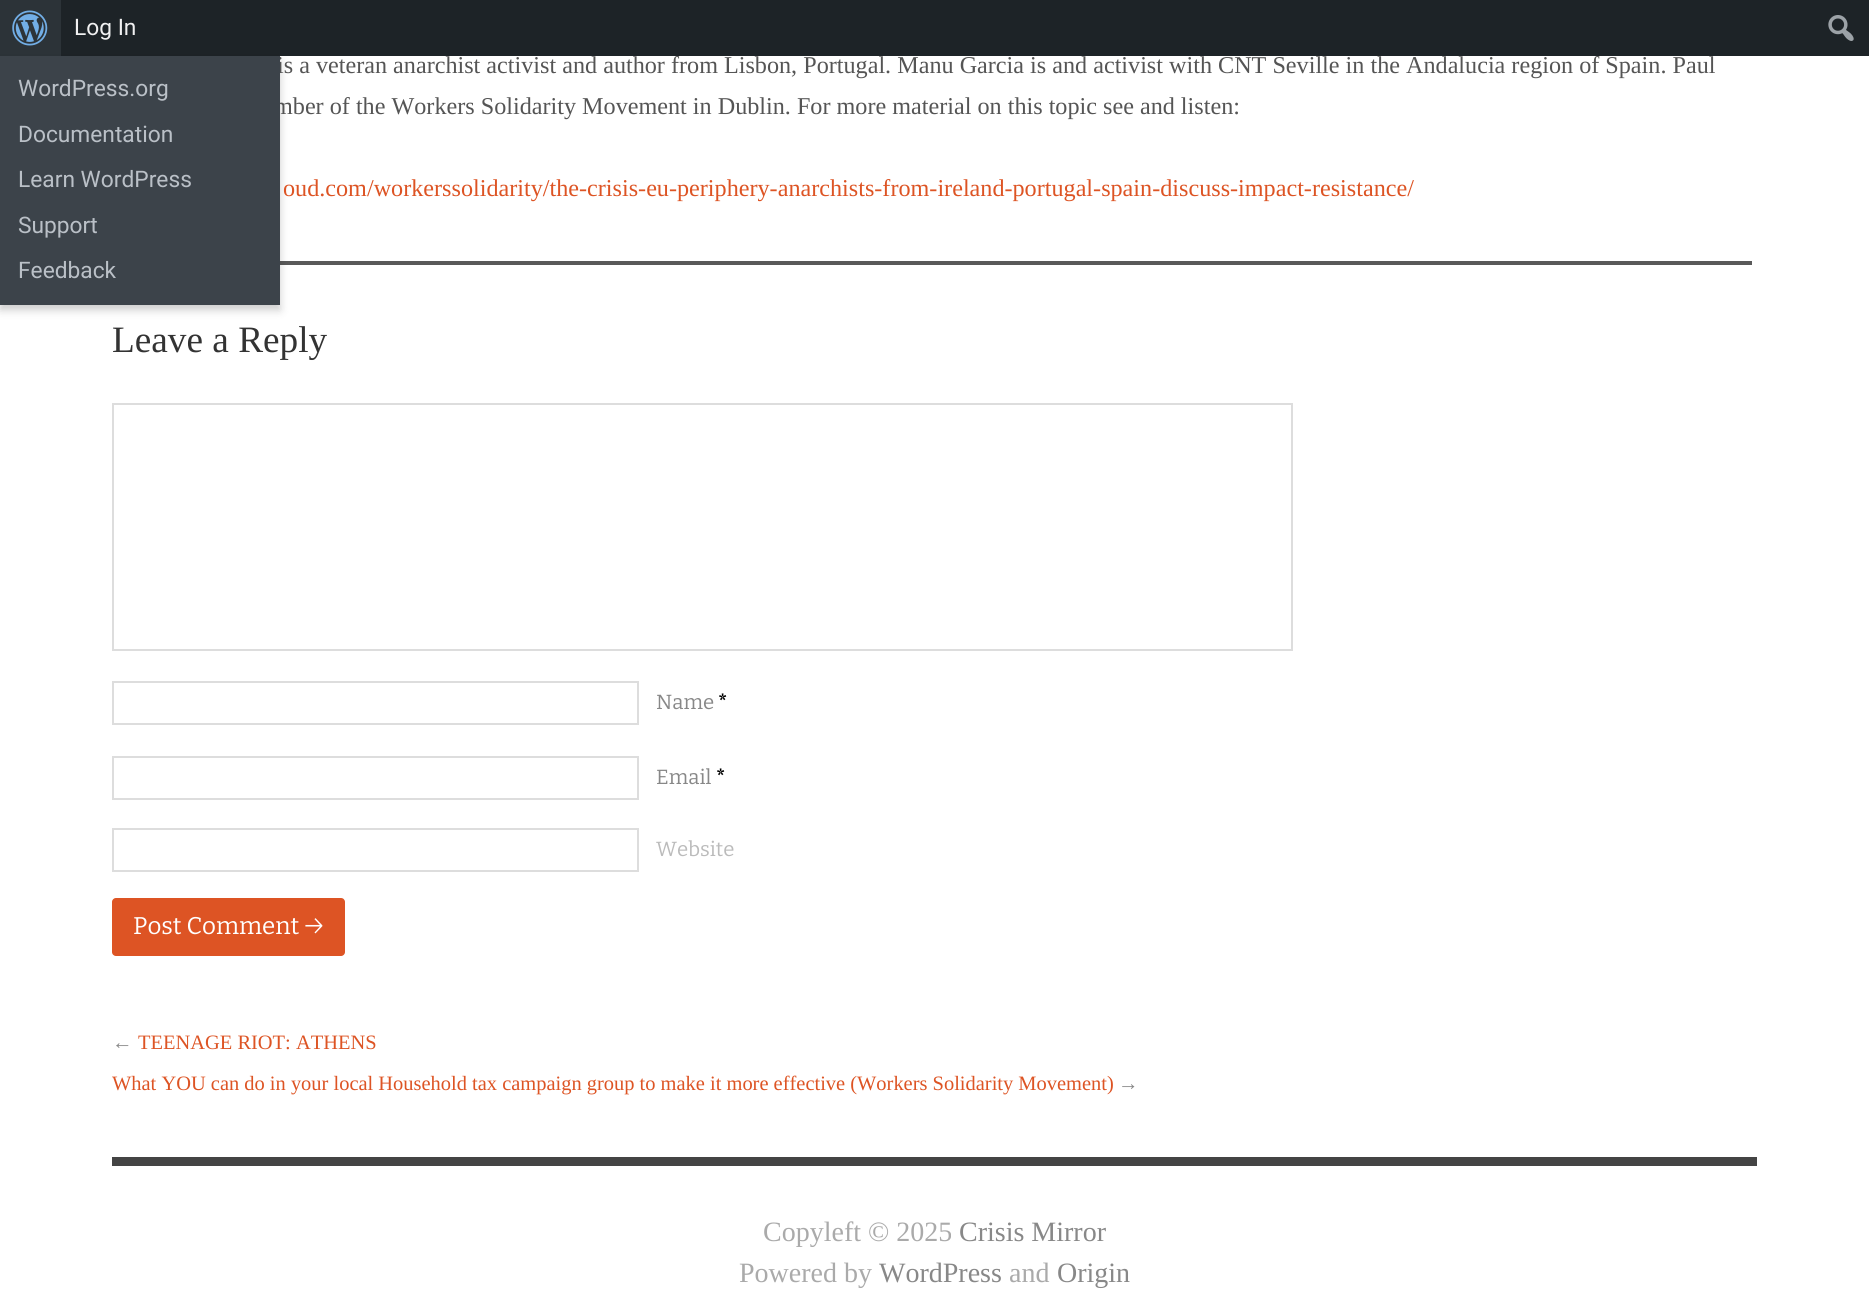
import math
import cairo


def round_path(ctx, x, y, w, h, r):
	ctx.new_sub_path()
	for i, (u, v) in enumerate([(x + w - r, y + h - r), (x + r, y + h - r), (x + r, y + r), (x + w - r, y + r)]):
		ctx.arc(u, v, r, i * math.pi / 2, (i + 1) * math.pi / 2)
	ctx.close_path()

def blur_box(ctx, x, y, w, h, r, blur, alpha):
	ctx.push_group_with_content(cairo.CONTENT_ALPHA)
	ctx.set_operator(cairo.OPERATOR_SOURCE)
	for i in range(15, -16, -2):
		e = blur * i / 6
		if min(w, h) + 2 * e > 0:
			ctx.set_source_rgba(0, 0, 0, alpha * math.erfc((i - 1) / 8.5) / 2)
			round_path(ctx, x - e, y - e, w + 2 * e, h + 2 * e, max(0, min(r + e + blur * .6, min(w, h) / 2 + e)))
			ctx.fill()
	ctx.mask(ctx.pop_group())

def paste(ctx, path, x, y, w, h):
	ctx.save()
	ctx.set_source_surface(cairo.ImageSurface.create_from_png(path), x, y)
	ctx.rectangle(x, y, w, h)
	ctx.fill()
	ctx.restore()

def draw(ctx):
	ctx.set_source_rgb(1, 1, 1)
	ctx.paint()
	ctx.set_source_rgb(0.114, 0.137, 0.153)
	ctx.rectangle(61, 0, 1808, 56)
	ctx.fill()
	ctx.select_font_face('Roboto')
	ctx.set_font_size(22.75)
	ctx.set_source_rgb(0.941, 0.941, 0.945)
	ctx.move_to(74, 35)
	ctx.show_text('Log In')
	ctx.set_source_rgb(0.173, 0.2, 0.22)
	ctx.rectangle(0, 0, 61, 56)
	ctx.fill()
	paste(ctx, 'media/1.png', 12, 10, 36, 36)
	ctx.set_source_rgb(0.349, 0.349, 0.349)
	ctx.rectangle(280, 261, 1472, 4)
	ctx.fill()
	ctx.set_source_rgb(0, 0, 0)
	blur_box(ctx, 0, 61, 280, 249, 0, 4.5, 0.2)
	ctx.select_font_face('Liberation Serif')
	ctx.set_font_size(24.17)
	ctx.set_source_rgb(0.333, 0.333, 0.333)
	ctx.move_to(277, 73)
	ctx.show_text('is a veteran anarchist activist and author from Lisbon, Portugal. Manu Garcia is and activist with CNT Seville in the Andalucia region of Spain. Paul')
	ctx.move_to(274, 114)
	ctx.show_text('mber of the Workers Solidarity Movement in Dublin. For more material on this topic see and listen:')
	ctx.set_source_rgb(0.235, 0.263, 0.29)
	ctx.rectangle(0, 56, 280, 249)
	ctx.fill()
	ctx.select_font_face('Roboto')
	ctx.set_font_size(22.75)
	ctx.set_source_rgb(0.729, 0.753, 0.78)
	for x, y, s in [
		(18, 96, 'WordPress.org'),
		(18, 142, 'Documentation'),
		(18, 187, 'Learn WordPress'),
		(18, 233, 'Support'),
		(18, 278, 'Feedback'),
	]:
		ctx.move_to(x, y)
		ctx.show_text(s)
	paste(ctx, 'media/2.png', 1828, 15, 26, 26)
	ctx.select_font_face('Liberation Serif')
	ctx.set_font_size(24.17)
	ctx.set_source_rgb(0.867, 0.329, 0.141)
	ctx.move_to(283, 196)
	ctx.show_text('oud.com/workerssolidarity/the-crisis-eu-periphery-anarchists-from-ireland-portugal-spain-discuss-impact-resistance/')
	ctx.set_font_size(37.25)
	ctx.set_source_rgb(0.2, 0.2, 0.2)
	ctx.move_to(112, 352)
	ctx.show_text('Leave a Reply')
	ctx.rectangle(113, 404, 1179, 246)
	ctx.set_source_rgb(0.867, 0.867, 0.867)
	ctx.stroke()
	ctx.rectangle(113, 682, 525, 42)
	ctx.stroke()
	ctx.select_font_face('Bitter')
	ctx.set_font_size(20.45)
	ctx.set_source_rgb(0.533, 0.533, 0.533)
	ctx.move_to(656, 709)
	ctx.show_text('Name')
	ctx.select_font_face('Bitter', cairo.FONT_SLANT_NORMAL, cairo.FONT_WEIGHT_BOLD)
	ctx.set_source_rgb(0, 0, 0)
	ctx.move_to(718, 709)
	ctx.show_text('*')
	ctx.rectangle(113, 757, 525, 42)
	ctx.set_source_rgb(0.867, 0.867, 0.867)
	ctx.stroke()
	ctx.select_font_face('Bitter')
	ctx.set_source_rgb(0.533, 0.533, 0.533)
	ctx.move_to(656, 784)
	ctx.show_text('Email')
	ctx.select_font_face('Bitter', cairo.FONT_SLANT_NORMAL, cairo.FONT_WEIGHT_BOLD)
	ctx.set_source_rgb(0, 0, 0)
	ctx.move_to(716, 784)
	ctx.show_text('*')
	ctx.rectangle(113, 829, 525, 42)
	ctx.set_source_rgb(0.867, 0.867, 0.867)
	ctx.stroke()
	ctx.select_font_face('Bitter')
	ctx.set_source_rgb(0.733, 0.733, 0.733)
	ctx.move_to(656, 856)
	ctx.show_text('Website')
	ctx.set_source_rgb(0.867, 0.329, 0.141)
	round_path(ctx, 112, 898, 233, 58, 4)
	ctx.fill()
	ctx.set_font_size(24.17)
	ctx.set_source_rgb(1, 1, 1)
	ctx.move_to(133, 934)
	ctx.show_text('Post Comment →')
	ctx.select_font_face('Liberation Serif')
	ctx.set_font_size(20.45)
	ctx.set_source_rgb(0.533, 0.533, 0.533)
	ctx.move_to(112, 1049)
	ctx.show_text('←')
	ctx.set_source_rgb(0.867, 0.329, 0.141)
	ctx.move_to(138, 1049)
	ctx.show_text('TEENAGE RIOT: ATHENS')
	ctx.move_to(112, 1090)
	ctx.show_text('What YOU can do in your local Household tax campaign group to make it more effective (Workers Solidarity Movement)')
	ctx.set_source_rgb(0.533, 0.533, 0.533)
	ctx.move_to(1118, 1090)
	ctx.show_text('→')
	ctx.set_source_rgb(0.267, 0.267, 0.267)
	ctx.rectangle(112, 1157, 1645, 9)
	ctx.fill()
	ctx.set_font_size(28)
	ctx.set_source_rgb(0.667, 0.667, 0.667)
	ctx.move_to(763, 1241)
	ctx.show_text('Copyleft © 2025')
	ctx.set_source_rgb(0.533, 0.533, 0.533)
	ctx.move_to(959, 1241)
	ctx.show_text('Crisis Mirror')
	ctx.set_source_rgb(0.667, 0.667, 0.667)
	ctx.move_to(739, 1282)
	ctx.show_text('Powered by')
	ctx.set_source_rgb(0.533, 0.533, 0.533)
	ctx.move_to(879, 1282)
	ctx.show_text('WordPress')
	ctx.set_source_rgb(0.667, 0.667, 0.667)
	ctx.move_to(1009, 1282)
	ctx.show_text('and')
	ctx.set_source_rgb(0.533, 0.533, 0.533)
	ctx.move_to(1057, 1282)
	ctx.show_text('Origin')


surface = cairo.ImageSurface(cairo.FORMAT_RGB24, 1869, 1304)
ctx = cairo.Context(surface)
options = cairo.FontOptions()
options.set_hint_metrics(cairo.HINT_METRICS_OFF)
options.set_hint_style(cairo.HINT_STYLE_NONE)
ctx.set_font_options(options)
ctx.set_miter_limit(4)
draw(ctx)
surface.write_to_png('image.png')
